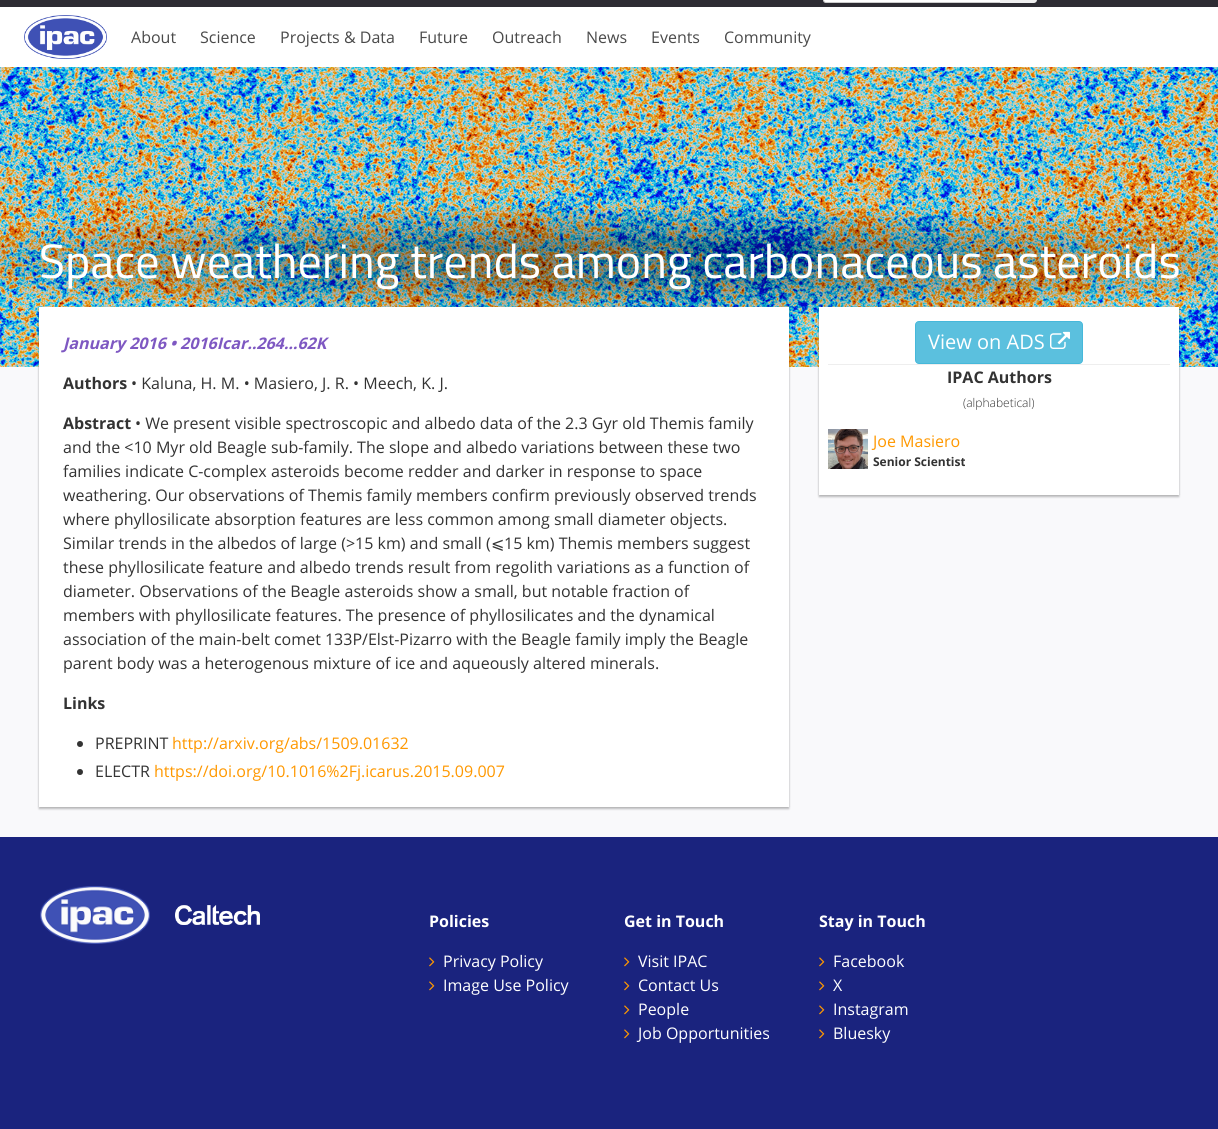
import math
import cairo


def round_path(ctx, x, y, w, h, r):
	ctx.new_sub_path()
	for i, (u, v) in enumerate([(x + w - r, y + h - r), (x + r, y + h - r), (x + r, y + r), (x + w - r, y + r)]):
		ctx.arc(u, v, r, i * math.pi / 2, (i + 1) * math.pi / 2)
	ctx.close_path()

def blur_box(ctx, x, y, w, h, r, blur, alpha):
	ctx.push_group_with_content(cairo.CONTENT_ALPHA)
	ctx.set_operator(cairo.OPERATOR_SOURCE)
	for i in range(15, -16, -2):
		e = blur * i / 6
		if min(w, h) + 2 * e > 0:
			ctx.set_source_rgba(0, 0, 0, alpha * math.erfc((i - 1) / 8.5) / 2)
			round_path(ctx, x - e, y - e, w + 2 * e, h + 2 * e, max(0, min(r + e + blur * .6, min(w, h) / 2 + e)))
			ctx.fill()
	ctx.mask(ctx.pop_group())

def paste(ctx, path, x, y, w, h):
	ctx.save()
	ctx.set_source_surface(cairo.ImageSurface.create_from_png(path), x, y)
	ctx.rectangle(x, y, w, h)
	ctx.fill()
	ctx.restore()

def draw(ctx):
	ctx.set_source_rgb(0.976, 0.976, 0.984)
	ctx.paint()
	ctx.set_source_rgb(0.176, 0.173, 0.2)
	ctx.rectangle(0, 0, 1218, 7)
	ctx.fill()
	ctx.set_source_rgb(1, 1, 1)
	ctx.new_path()
	ctx.move_to(826, -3.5)
	ctx.line_to(1000.5, -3.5)
	ctx.line_to(1000.5, 2.5)
	ctx.line_to(826, 2.5)
	ctx.curve_to(824.5, 2.5, 823.5, 1.5, 823.5, 0)
	ctx.line_to(823.5, -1)
	ctx.curve_to(823.5, -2.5, 824.5, -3.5, 826, -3.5)
	ctx.close_path()
	ctx.fill_preserve()
	ctx.set_source_rgb(0.8, 0.8, 0.8)
	ctx.set_line_width(1)
	ctx.stroke()
	ctx.set_source_rgb(0.937, 0.937, 0.937)
	ctx.new_path()
	ctx.move_to(1000, -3)
	ctx.line_to(1034, -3)
	ctx.curve_to(1035.5, -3, 1037, -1.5, 1037, 0)
	ctx.curve_to(1037, 1.5, 1035.5, 3, 1034, 3)
	ctx.line_to(1000, 3)
	ctx.close_path()
	ctx.fill()
	ctx.set_source_rgb(1, 1, 1)
	ctx.rectangle(0, 7, 1218, 60)
	ctx.fill()
	paste(ctx, 'media/1.png', 24, 15, 83, 44)
	ctx.select_font_face('Open Sans')
	ctx.set_font_size(16)
	ctx.set_source_rgb(0.29, 0.29, 0.29)
	for x, y, s in [
		(131, 43, 'About'),
		(200, 43, 'Science'),
		(280, 43, 'Projects & Data'),
		(419, 43, 'Future'),
		(492, 43, 'Outreach'),
		(586, 43, 'News'),
		(651, 43, 'Events'),
		(724, 43, 'Community'),
	]:
		ctx.move_to(x, y)
		ctx.show_text(s)
	paste(ctx, 'media/2.png', 0, 67, 1218, 300)
	ctx.select_font_face('Titillium Web')
	ctx.set_font_size(48)
	ctx.set_source_rgb(1, 1, 1)
	ctx.move_to(39, 278)
	ctx.show_text('Space weathering trends among carbonaceous asteroids')
	ctx.set_source_rgb(0, 0, 0)
	blur_box(ctx, 39, 307, 750, 500, 0, 1, 0.12)
	blur_box(ctx, 39, 309, 750, 500, 0, 1, 0.24)
	ctx.set_source_rgb(1, 1, 1)
	ctx.rectangle(39, 307, 750, 500)
	ctx.fill()
	ctx.select_font_face('Open Sans', cairo.FONT_SLANT_ITALIC, cairo.FONT_WEIGHT_BOLD)
	ctx.set_font_size(16)
	ctx.set_source_rgb(0.494, 0.345, 0.761)
	ctx.move_to(63, 349)
	ctx.show_text('January 2016 • 2016Icar..264...62K')
	ctx.select_font_face('Open Sans', cairo.FONT_SLANT_NORMAL, cairo.FONT_WEIGHT_BOLD)
	ctx.set_source_rgb(0.2, 0.2, 0.2)
	ctx.move_to(63, 389)
	ctx.show_text('Authors')
	ctx.select_font_face('Open Sans')
	ctx.move_to(131, 389)
	ctx.show_text('• Kaluna, H. M. • Masiero, J. R. • Meech, K. J.')
	ctx.select_font_face('Open Sans', cairo.FONT_SLANT_NORMAL, cairo.FONT_WEIGHT_BOLD)
	ctx.move_to(63, 429)
	ctx.show_text('Abstract')
	ctx.select_font_face('Open Sans')
	for x, y, s in [
		(135, 429, '• We present visible spectroscopic and albedo data of the 2.3 Gyr old Themis family'),
		(63, 453, 'and the <10 Myr old Beagle sub-family. The slope and albedo variations between these two'),
		(63, 477, 'families indicate C-complex asteroids become redder and darker in response to space'),
		(63, 501, 'weathering. Our observations of Themis family members confirm previously observed trends'),
		(63, 525, 'where phyllosilicate absorption features are less common among small diameter objects.'),
		(63, 549, 'Similar trends in the albedos of large (>15 km) and small ('),
	]:
		ctx.move_to(x, y)
		ctx.show_text(s)
	ctx.select_font_face('DejaVu Sans')
	ctx.move_to(491, 549)
	ctx.show_text('⩽')
	ctx.select_font_face('Open Sans')
	for x, y, s in [
		(504, 549, '15 km) Themis members suggest'),
		(63, 573, 'these phyllosilicate feature and albedo trends result from regolith variations as a function of'),
		(63, 597, 'diameter. Observations of the Beagle asteroids show a small, but notable fraction of'),
		(63, 621, 'members with phyllosilicate features. The presence of phyllosilicates and the dynamical'),
		(63, 645, 'association of the main-belt comet 133P/Elst-Pizarro with the Beagle family imply the Beagle'),
		(63, 669, 'parent body was a heterogenous mixture of ice and aqueously altered minerals.'),
	]:
		ctx.move_to(x, y)
		ctx.show_text(s)
	ctx.select_font_face('Open Sans', cairo.FONT_SLANT_NORMAL, cairo.FONT_WEIGHT_BOLD)
	ctx.move_to(63, 709)
	ctx.show_text('Links')
	ctx.new_path()
	ctx.arc(80, 744, 3, 0, 2 * math.pi)
	ctx.fill()
	ctx.select_font_face('Open Sans')
	ctx.move_to(95, 749)
	ctx.show_text('PREPRINT')
	ctx.set_source_rgb(1, 0.596, 0)
	ctx.move_to(172, 749)
	ctx.show_text('http://arxiv.org/abs/1509.01632')
	ctx.set_source_rgb(0.2, 0.2, 0.2)
	ctx.new_path()
	ctx.arc(80, 772, 3, 0, 2 * math.pi)
	ctx.fill()
	ctx.move_to(95, 777)
	ctx.show_text('ELECTR')
	ctx.set_source_rgb(1, 0.596, 0)
	ctx.move_to(154, 777)
	ctx.show_text('https://doi.org/10.1016%2Fj.icarus.2015.09.007')
	ctx.set_source_rgb(0, 0, 0)
	blur_box(ctx, 819, 307, 360, 188, 0, 1, 0.12)
	blur_box(ctx, 819, 309, 360, 188, 0, 1, 0.24)
	ctx.set_source_rgb(1, 1, 1)
	ctx.rectangle(819, 307, 360, 188)
	ctx.fill()
	ctx.set_source_rgb(0.357, 0.753, 0.871)
	round_path(ctx, 915.5, 321.5, 167, 42, 3.5)
	ctx.fill_preserve()
	ctx.set_source_rgb(0.275, 0.722, 0.855)
	ctx.stroke()
	ctx.set_font_size(20)
	ctx.set_source_rgb(1, 1, 1)
	ctx.move_to(928, 349)
	ctx.show_text('View on ADS')
	paste(ctx, 'media/3.png', 1050, 331, 20, 18)
	ctx.set_source_rgb(0.933, 0.933, 0.933)
	ctx.rectangle(828, 364, 342, 1)
	ctx.fill()
	ctx.select_font_face('Open Sans', cairo.FONT_SLANT_NORMAL, cairo.FONT_WEIGHT_BOLD)
	ctx.set_font_size(16)
	ctx.set_source_rgb(0.2, 0.2, 0.2)
	ctx.move_to(947, 383)
	ctx.show_text('IPAC Authors')
	ctx.select_font_face('Open Sans Light')
	ctx.set_font_size(12)
	ctx.move_to(963, 407)
	ctx.show_text('(alphabetical)')
	paste(ctx, 'media/4.png', 828, 429, 40, 40)
	ctx.select_font_face('Open Sans')
	ctx.set_font_size(16)
	ctx.set_source_rgb(1, 0.596, 0)
	ctx.move_to(873, 447)
	ctx.show_text('Joe Masiero')
	ctx.select_font_face('Open Sans', cairo.FONT_SLANT_NORMAL, cairo.FONT_WEIGHT_BOLD)
	ctx.set_font_size(12)
	ctx.set_source_rgb(0.2, 0.2, 0.2)
	ctx.move_to(873, 466)
	ctx.show_text('Senior Scientist')
	ctx.set_source_rgb(0.102, 0.137, 0.494)
	ctx.rectangle(0, 837, 1218, 292)
	ctx.fill()
	paste(ctx, 'media/5.png', 40, 886, 110, 58)
	paste(ctx, 'media/6.png', 175, 905, 85, 20)
	ctx.set_font_size(16)
	ctx.set_source_rgb(1, 1, 1)
	ctx.move_to(429, 927)
	ctx.show_text('Policies')
	paste(ctx, 'media/7.png', 429, 957, 6, 10)
	ctx.select_font_face('Open Sans')
	ctx.move_to(443, 967)
	ctx.show_text('Privacy Policy')
	paste(ctx, 'media/7.png', 429, 981, 6, 10)
	ctx.move_to(443, 991)
	ctx.show_text('Image Use Policy')
	ctx.select_font_face('Open Sans', cairo.FONT_SLANT_NORMAL, cairo.FONT_WEIGHT_BOLD)
	ctx.move_to(624, 927)
	ctx.show_text('Get in Touch')
	paste(ctx, 'media/7.png', 624, 957, 6, 10)
	ctx.select_font_face('Open Sans')
	ctx.move_to(638, 967)
	ctx.show_text('Visit IPAC')
	paste(ctx, 'media/7.png', 624, 981, 6, 10)
	ctx.move_to(638, 991)
	ctx.show_text('Contact Us')
	paste(ctx, 'media/7.png', 624, 1005, 6, 10)
	ctx.move_to(638, 1015)
	ctx.show_text('People')
	paste(ctx, 'media/7.png', 624, 1029, 6, 10)
	ctx.move_to(638, 1039)
	ctx.show_text('Job Opportunities')
	ctx.select_font_face('Open Sans', cairo.FONT_SLANT_NORMAL, cairo.FONT_WEIGHT_BOLD)
	ctx.move_to(819, 927)
	ctx.show_text('Stay in Touch')
	paste(ctx, 'media/7.png', 819, 957, 6, 10)
	ctx.select_font_face('Open Sans')
	ctx.move_to(833, 967)
	ctx.show_text('Facebook')
	paste(ctx, 'media/7.png', 819, 981, 6, 10)
	ctx.move_to(833, 991)
	ctx.show_text('X')
	paste(ctx, 'media/7.png', 819, 1005, 6, 10)
	ctx.move_to(833, 1015)
	ctx.show_text('Instagram')
	paste(ctx, 'media/7.png', 819, 1029, 6, 10)
	ctx.move_to(833, 1039)
	ctx.show_text('Bluesky')


surface = cairo.ImageSurface(cairo.FORMAT_RGB24, 1218, 1129)
ctx = cairo.Context(surface)
options = cairo.FontOptions()
options.set_hint_metrics(cairo.HINT_METRICS_OFF)
options.set_hint_style(cairo.HINT_STYLE_NONE)
ctx.set_font_options(options)
ctx.set_miter_limit(4)
draw(ctx)
surface.write_to_png('image.png')
